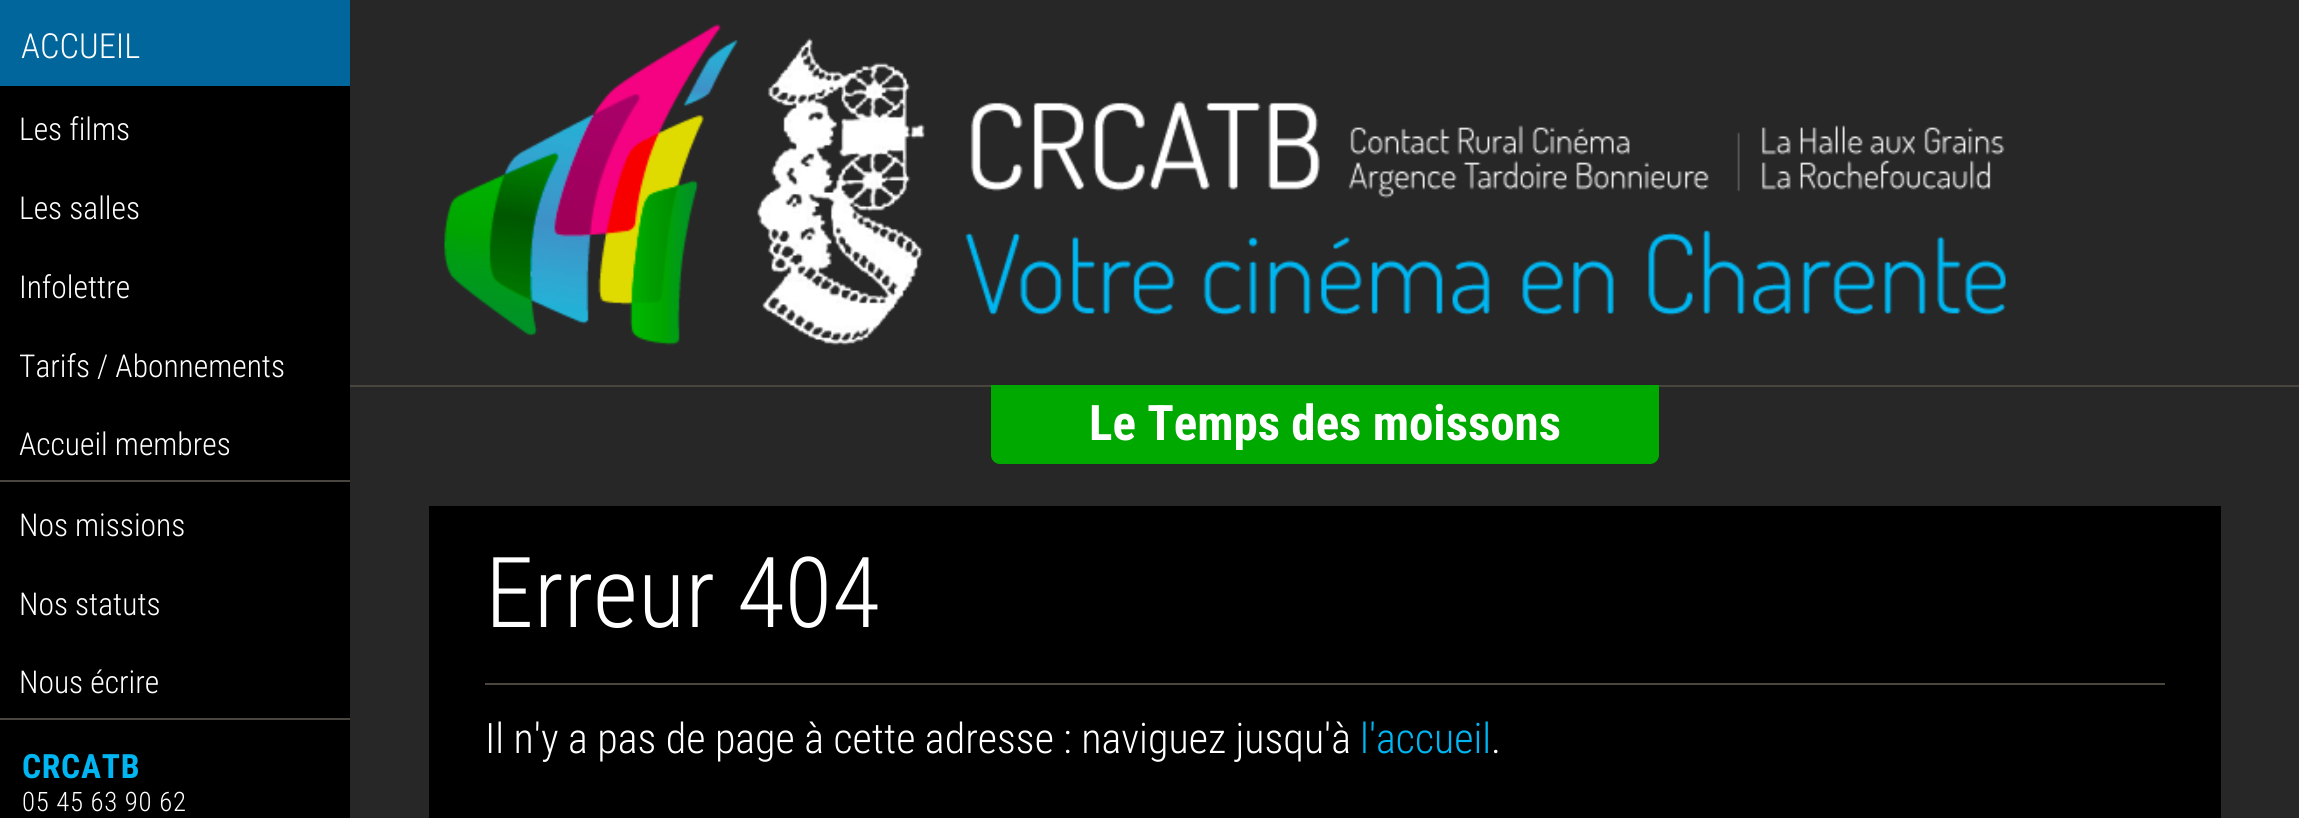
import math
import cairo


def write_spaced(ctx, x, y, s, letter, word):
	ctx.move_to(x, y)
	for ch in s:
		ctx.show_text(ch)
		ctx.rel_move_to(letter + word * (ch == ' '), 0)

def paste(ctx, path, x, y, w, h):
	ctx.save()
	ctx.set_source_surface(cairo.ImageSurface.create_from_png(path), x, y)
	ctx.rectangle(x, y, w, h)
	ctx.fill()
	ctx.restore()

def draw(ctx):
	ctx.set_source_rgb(0.153, 0.153, 0.153)
	ctx.paint()
	ctx.set_source_rgb(0, 0, 0)
	ctx.rectangle(0, 86, 350, 732)
	ctx.fill()
	ctx.set_source_rgb(0.004, 0.4, 0.612)
	ctx.rectangle(0, 0, 350, 86)
	ctx.fill()
	ctx.select_font_face('Roboto Condensed Light')
	ctx.set_font_size(34.5)
	ctx.set_source_rgb(1, 1, 1)
	ctx.move_to(21, 58)
	ctx.show_text('ACCUEIL')
	ctx.set_font_size(31.5)
	for x, y, s in [
		(19, 140, 'Les films'),
		(19, 219, 'Les salles'),
		(19, 298, 'Infolettre'),
		(19, 377, 'Tarifs / Abonnements'),
		(19, 455, 'Accueil membres'),
	]:
		ctx.move_to(x, y)
		ctx.show_text(s)
	ctx.set_source_rgb(0.286, 0.275, 0.247)
	ctx.rectangle(0, 480, 350, 2)
	ctx.fill()
	ctx.set_source_rgb(1, 1, 1)
	for x, y, s in [
		(19, 536, 'Nos missions'),
		(19, 615, 'Nos statuts'),
		(19, 693, 'Nous écrire'),
	]:
		ctx.move_to(x, y)
		ctx.show_text(s)
	ctx.set_source_rgb(0.286, 0.275, 0.247)
	ctx.rectangle(0, 718, 350, 2)
	ctx.fill()
	ctx.select_font_face('Roboto Condensed', cairo.FONT_SLANT_NORMAL, cairo.FONT_WEIGHT_BOLD)
	ctx.set_font_size(33.5)
	ctx.set_source_rgb(0, 0.714, 0.949)
	write_spaced(ctx, 22, 778, 'CRCATB', 0.75, 0)
	ctx.select_font_face('Roboto Condensed Light')
	ctx.set_font_size(26.75)
	ctx.set_source_rgb(1, 1, 1)
	write_spaced(ctx, 22, 811, '05 45 63 90 62', 0.75, 0)
	paste(ctx, 'media/1.png', 444, 24, 1562, 322)
	ctx.set_source_rgb(0.286, 0.275, 0.247)
	ctx.rectangle(350, 385, 1949, 2)
	ctx.fill()
	ctx.set_source_rgb(0, 0.663, 0)
	ctx.new_path()
	ctx.move_to(991, 385)
	ctx.line_to(1659, 385)
	ctx.line_to(1659, 455)
	ctx.curve_to(1659, 460, 1655, 464, 1650, 464)
	ctx.line_to(1000, 464)
	ctx.curve_to(995, 464, 991, 460, 991, 455)
	ctx.close_path()
	ctx.fill()
	ctx.select_font_face('Roboto Condensed', cairo.FONT_SLANT_NORMAL, cairo.FONT_WEIGHT_BOLD)
	ctx.set_font_size(49)
	ctx.set_source_rgb(1, 1, 1)
	ctx.move_to(1089, 440)
	ctx.show_text('Le Temps des moissons')
	ctx.set_source_rgb(0, 0, 0)
	ctx.rectangle(429, 506, 1792, 312)
	ctx.fill()
	ctx.select_font_face('Roboto Condensed Light')
	ctx.set_font_size(98)
	ctx.set_source_rgb(1, 1, 1)
	ctx.move_to(485, 627)
	ctx.show_text('Erreur 404')
	ctx.set_source_rgb(0.286, 0.275, 0.247)
	ctx.rectangle(485, 683, 1680, 2)
	ctx.fill()
	ctx.set_font_size(42)
	ctx.set_source_rgb(1, 1, 1)
	ctx.move_to(485, 753)
	ctx.show_text('Il n\'y a pas de page à cette adresse : naviguez jusqu\'à')
	ctx.set_source_rgb(0, 0.714, 0.949)
	ctx.move_to(1360, 753)
	ctx.show_text('l\'accueil')
	ctx.set_source_rgb(1, 1, 1)
	ctx.move_to(1491, 753)
	ctx.show_text('.')


surface = cairo.ImageSurface(cairo.FORMAT_RGB24, 2299, 818)
ctx = cairo.Context(surface)
options = cairo.FontOptions()
options.set_hint_metrics(cairo.HINT_METRICS_OFF)
options.set_hint_style(cairo.HINT_STYLE_NONE)
ctx.set_font_options(options)
ctx.set_miter_limit(4)
draw(ctx)
surface.write_to_png('image.png')
